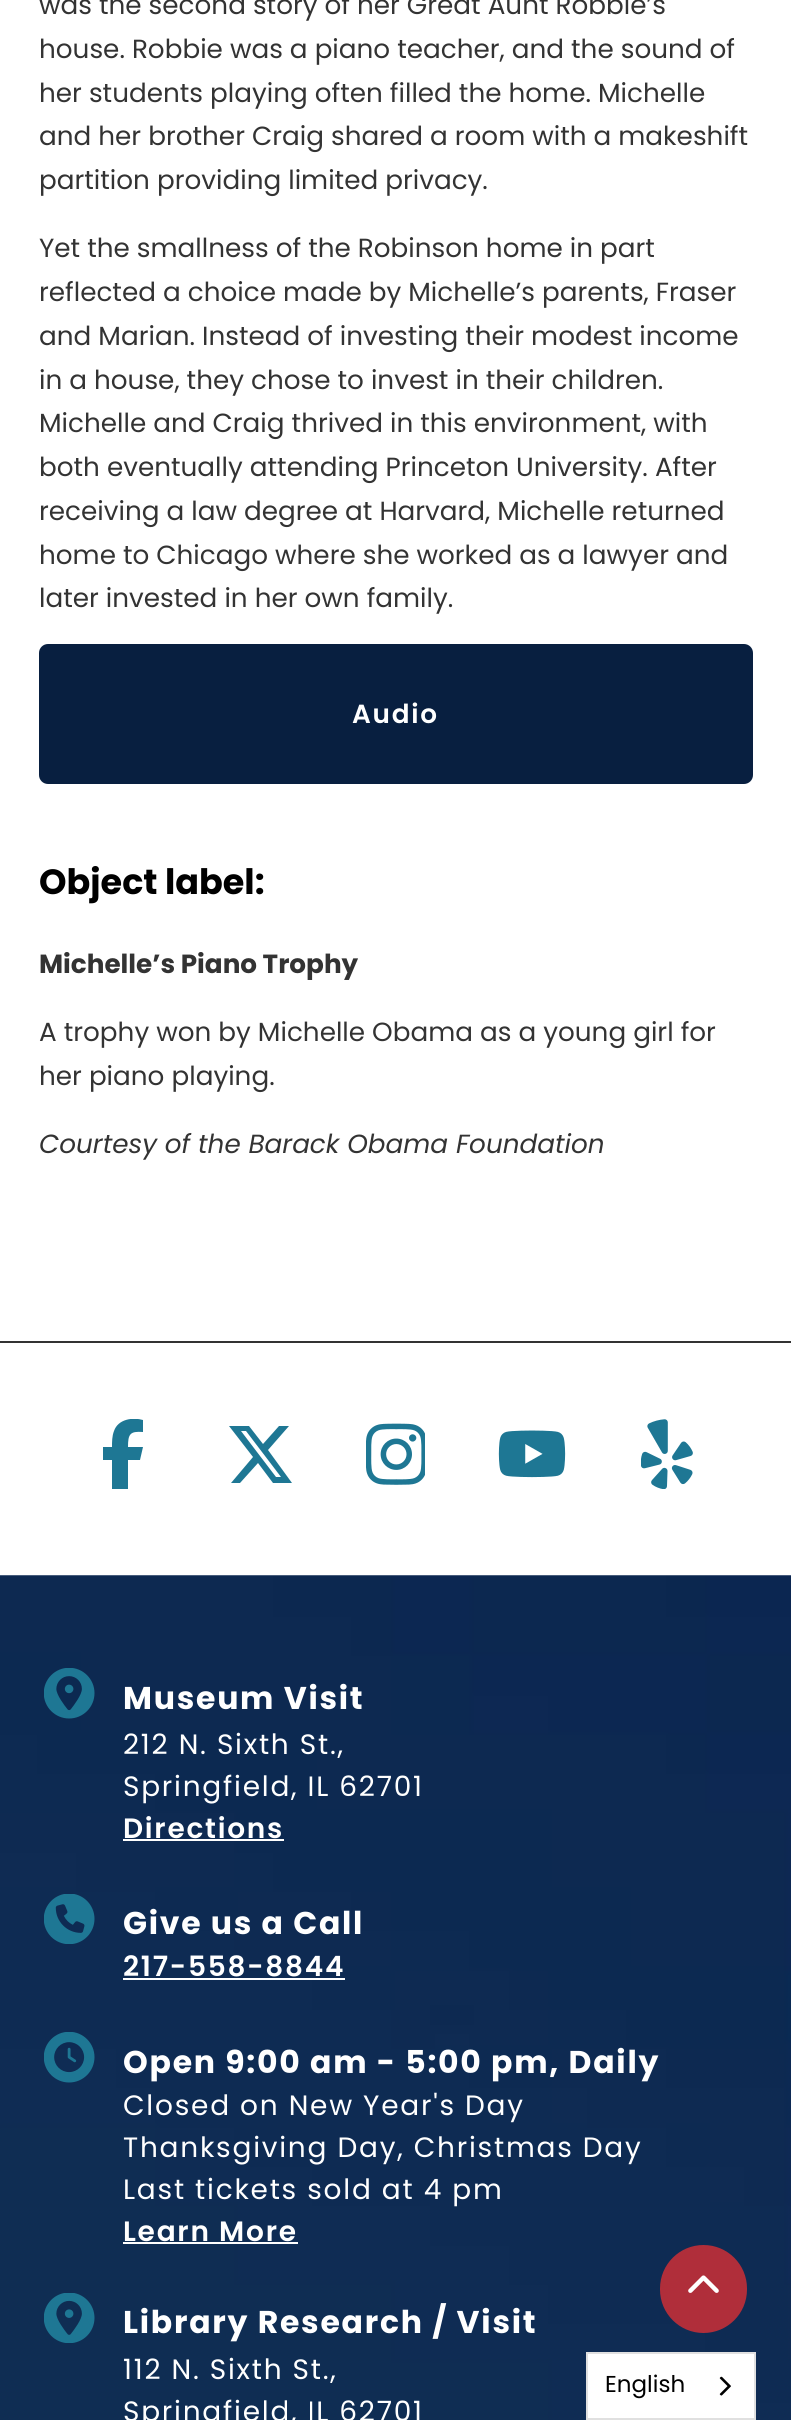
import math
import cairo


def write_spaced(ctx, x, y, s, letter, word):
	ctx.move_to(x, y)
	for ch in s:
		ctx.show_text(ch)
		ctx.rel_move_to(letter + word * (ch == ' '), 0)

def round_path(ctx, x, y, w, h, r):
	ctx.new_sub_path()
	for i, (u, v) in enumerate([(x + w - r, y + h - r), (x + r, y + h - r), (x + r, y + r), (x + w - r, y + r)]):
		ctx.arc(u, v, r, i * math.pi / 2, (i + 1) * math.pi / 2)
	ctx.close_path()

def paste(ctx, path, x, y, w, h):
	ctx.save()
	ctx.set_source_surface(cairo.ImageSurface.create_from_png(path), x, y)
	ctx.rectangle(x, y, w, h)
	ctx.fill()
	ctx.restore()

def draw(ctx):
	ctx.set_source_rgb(1, 1, 1)
	ctx.paint()
	ctx.select_font_face('Poppins')
	ctx.set_font_size(26.25)
	ctx.set_source_rgb(0.2, 0.2, 0.2)
	for x, y, s in [
		(39, 14, 'was the second story of her Great Aunt Robbie’s'),
		(39, 58, 'house. Robbie was a piano teacher, and the sound of'),
		(39, 102, 'her students playing often filled the home. Michelle'),
		(39, 145, 'and her brother Craig shared a room with a makeshift'),
		(39, 189, 'partition providing limited privacy.'),
		(39, 257, 'Yet the smallness of the Robinson home in part'),
		(39, 301, 'reflected a choice made by Michelle’s parents, Fraser'),
		(39, 345, 'and Marian. Instead of investing their modest income'),
		(39, 389, 'in a house, they chose to invest in their children.'),
		(39, 432, 'Michelle and Craig thrived in this environment, with'),
		(39, 476, 'both eventually attending Princeton University. After'),
		(39, 520, 'receiving a law degree at Harvard, Michelle returned'),
		(39, 564, 'home to Chicago where she worked as a lawyer and'),
		(39, 607, 'later invested in her own family.'),
	]:
		ctx.move_to(x, y)
		ctx.show_text(s)
	ctx.set_source_rgb(0.035, 0.122, 0.251)
	round_path(ctx, 39, 644, 714, 140, 9)
	ctx.fill()
	ctx.select_font_face('Poppins SemiBold')
	ctx.set_source_rgb(1, 1, 1)
	write_spaced(ctx, 352, 723, 'Audio', 1.75, 0)
	ctx.select_font_face('Poppins', cairo.FONT_SLANT_NORMAL, cairo.FONT_WEIGHT_BOLD)
	ctx.set_font_size(35)
	ctx.set_source_rgb(0, 0, 0)
	ctx.move_to(39, 894)
	ctx.show_text('Object label:')
	ctx.set_font_size(26.25)
	ctx.set_source_rgb(0.2, 0.2, 0.2)
	ctx.move_to(39, 973)
	ctx.show_text('Michelle’s Piano Trophy')
	ctx.select_font_face('Poppins')
	ctx.move_to(39, 1041)
	ctx.show_text('A trophy won by Michelle Obama as a young girl for')
	ctx.move_to(39, 1085)
	ctx.show_text('her piano playing.')
	ctx.select_font_face('Poppins', cairo.FONT_SLANT_ITALIC)
	ctx.move_to(39, 1153)
	ctx.show_text('Courtesy of the Barack Obama Foundation')
	ctx.rectangle(0, 1341, 791, 2)
	ctx.fill()
	ctx.save()
	ctx.rectangle(102, 1419, 45, 70)
	ctx.clip()
	ctx.set_source_rgb(0.118, 0.467, 0.58)
	ctx.new_path()
	ctx.move_to(112, 1460)
	ctx.line_to(112, 1489)
	ctx.line_to(128, 1489)
	ctx.line_to(128, 1460)
	ctx.line_to(140, 1460)
	ctx.line_to(143, 1447)
	ctx.line_to(128, 1447)
	ctx.curve_to(128, 1434, 130, 1431, 143, 1432)
	ctx.line_to(143, 1420)
	ctx.curve_to(133, 1417, 118, 1419, 114, 1431)
	ctx.curve_to(112, 1436, 112, 1442, 112, 1447)
	ctx.line_to(103, 1447)
	ctx.line_to(103, 1460)
	ctx.close_path()
	ctx.fill()
	ctx.restore()
	ctx.set_source_rgb(0.118, 0.467, 0.58)
	ctx.new_path()
	ctx.move_to(279, 1426)
	ctx.line_to(289, 1426)
	ctx.line_to(268, 1450)
	ctx.line_to(292, 1483)
	ctx.line_to(273, 1483)
	ctx.line_to(258, 1463)
	ctx.line_to(240, 1483)
	ctx.line_to(231, 1483)
	ctx.line_to(253, 1457)
	ctx.line_to(229, 1426)
	ctx.line_to(249, 1426)
	ctx.line_to(263, 1444)
	ctx.close_path()
	ctx.move_to(276, 1477)
	ctx.line_to(281, 1477)
	ctx.line_to(246, 1431)
	ctx.line_to(241, 1431)
	ctx.close_path()
	ctx.fill()
	paste(ctx, 'media/1.png', 366, 1423, 59, 62)
	paste(ctx, 'media/2.png', 498, 1430, 68, 48)
	paste(ctx, 'media/3.png', 641, 1419, 52, 70)
	paste(ctx, 'media/4.png', 0, 1575, 791, 845)
	ctx.select_font_face('Poppins', cairo.FONT_SLANT_NORMAL, cairo.FONT_WEIGHT_BOLD)
	ctx.set_font_size(31.5)
	ctx.set_source_rgb(1, 1, 1)
	write_spaced(ctx, 123, 1709, 'Museum Visit', 1.75, 0)
	paste(ctx, 'media/5.png', 44, 1668, 51, 51)
	ctx.select_font_face('Poppins')
	ctx.set_font_size(28)
	write_spaced(ctx, 123, 1754, '212 N. Sixth St.,', 1.75, 0)
	write_spaced(ctx, 123, 1796, 'Springfield, IL 62701', 1.75, 0)
	ctx.select_font_face('Poppins SemiBold')
	write_spaced(ctx, 123, 1838, 'Directions', 1.75, 0)
	ctx.rectangle(123, 1839, 161, 2)
	ctx.fill()
	paste(ctx, 'media/6.png', 44, 1894, 51, 50)
	ctx.select_font_face('Poppins', cairo.FONT_SLANT_NORMAL, cairo.FONT_WEIGHT_BOLD)
	ctx.set_font_size(31.5)
	write_spaced(ctx, 123, 1934, 'Give us a Call', 1.75, 0)
	ctx.select_font_face('Poppins SemiBold')
	ctx.set_font_size(28)
	write_spaced(ctx, 123, 1976, '217-558-8844', 1.75, 0)
	ctx.rectangle(123, 1978, 222, 2)
	ctx.fill()
	paste(ctx, 'media/7.png', 44, 2032, 51, 51)
	ctx.select_font_face('Poppins', cairo.FONT_SLANT_NORMAL, cairo.FONT_WEIGHT_BOLD)
	ctx.set_font_size(31.5)
	write_spaced(ctx, 123, 2073, 'Open 9:00 am - 5:00 pm, Daily', 1.75, 0)
	ctx.select_font_face('Poppins')
	ctx.set_font_size(28)
	for x, y, s in [
		(123, 2115, 'Closed on New Year\'s Day'),
		(123, 2157, 'Thanksgiving Day, Christmas Day'),
		(123, 2199, 'Last tickets sold at 4 pm'),
	]:
		write_spaced(ctx, x, y, s, 1.75, 0)
	ctx.select_font_face('Poppins SemiBold')
	write_spaced(ctx, 123, 2241, 'Learn More', 1.75, 0)
	ctx.rectangle(123, 2242, 175, 2)
	ctx.fill()
	ctx.select_font_face('Poppins', cairo.FONT_SLANT_NORMAL, cairo.FONT_WEIGHT_BOLD)
	ctx.set_font_size(31.5)
	write_spaced(ctx, 123, 2333, 'Library Research / Visit', 1.75, 0)
	paste(ctx, 'media/8.png', 44, 2293, 51, 50)
	ctx.select_font_face('Poppins')
	ctx.set_font_size(28)
	write_spaced(ctx, 123, 2379, '112 N. Sixth St.,', 1.75, 0)
	write_spaced(ctx, 123, 2421, 'Springfield, IL 62701', 1.75, 0)
	ctx.set_source_rgb(0.69, 0.18, 0.227)
	round_path(ctx, 661, 2246, 85, 86, 42.5)
	ctx.fill_preserve()
	ctx.stroke()
	paste(ctx, 'media/9.png', 688, 2275, 31, 18)
	ctx.set_source_rgb(1, 1, 1)
	ctx.rectangle(587, 2353, 168, 66)
	ctx.fill_preserve()
	ctx.set_source_rgb(0.878, 0.878, 0.878)
	ctx.stroke()
	ctx.set_font_size(23)
	ctx.set_source_rgb(0, 0, 0)
	ctx.move_to(605, 2392)
	ctx.show_text('English')
	paste(ctx, 'media/10.png', 719, 2376, 12, 20)


surface = cairo.ImageSurface(cairo.FORMAT_RGB24, 791, 2420)
ctx = cairo.Context(surface)
options = cairo.FontOptions()
options.set_hint_metrics(cairo.HINT_METRICS_OFF)
options.set_hint_style(cairo.HINT_STYLE_NONE)
ctx.set_font_options(options)
ctx.set_miter_limit(4)
draw(ctx)
surface.write_to_png('image.png')
